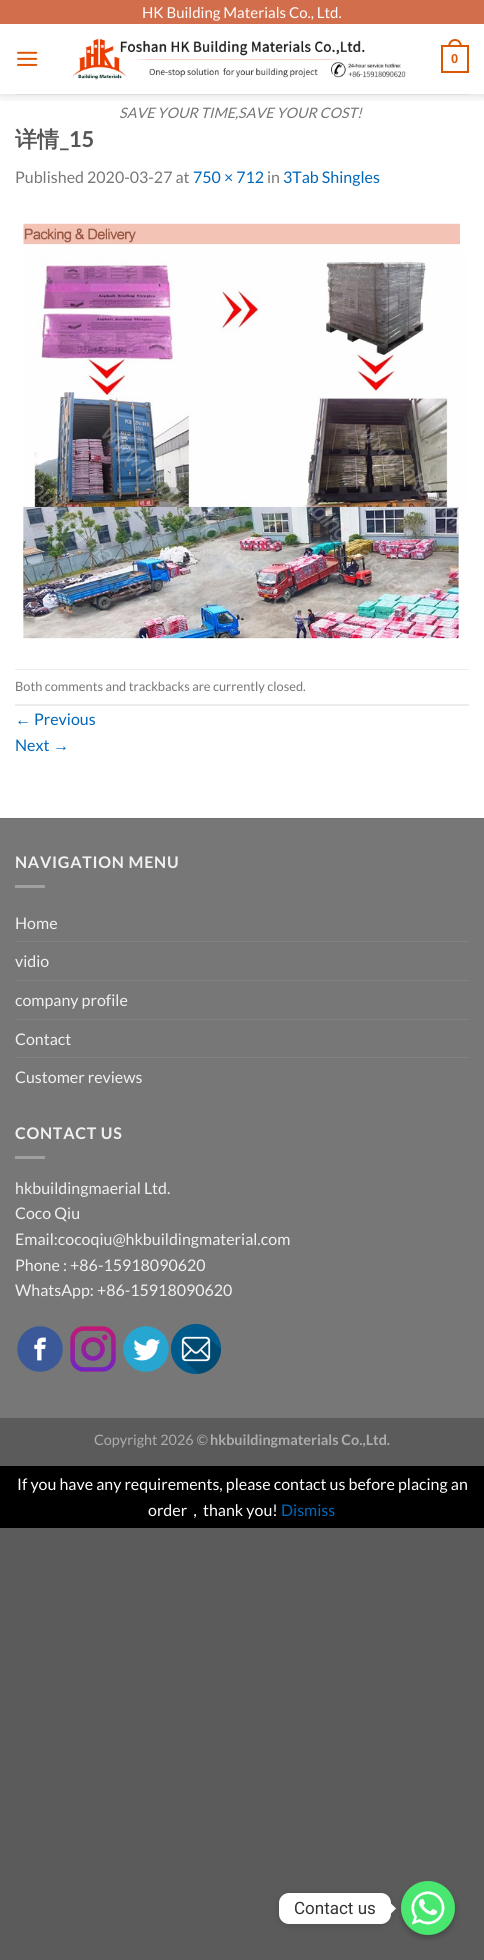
import math
import cairo


def write_spaced(ctx, x, y, s, letter, word):
	ctx.move_to(x, y)
	for ch in s:
		ctx.show_text(ch)
		ctx.rel_move_to(letter + word * (ch == ' '), 0)

def round_path(ctx, x, y, w, h, r):
	ctx.new_sub_path()
	for i, (u, v) in enumerate([(x + w - r, y + h - r), (x + r, y + h - r), (x + r, y + r), (x + w - r, y + r)]):
		ctx.arc(u, v, r, i * math.pi / 2, (i + 1) * math.pi / 2)
	ctx.close_path()

def blur_box(ctx, x, y, w, h, r, blur, alpha):
	ctx.push_group_with_content(cairo.CONTENT_ALPHA)
	ctx.set_operator(cairo.OPERATOR_SOURCE)
	for i in range(15, -16, -2):
		e = blur * i / 6
		if min(w, h) + 2 * e > 0:
			ctx.set_source_rgba(0, 0, 0, alpha * math.erfc((i - 1) / 8.5) / 2)
			round_path(ctx, x - e, y - e, w + 2 * e, h + 2 * e, max(0, min(r + e + blur * .6, min(w, h) / 2 + e)))
			ctx.fill()
	ctx.mask(ctx.pop_group())

def paste(ctx, path, x, y, w, h):
	ctx.save()
	ctx.set_source_surface(cairo.ImageSurface.create_from_png(path), x, y)
	ctx.rectangle(x, y, w, h)
	ctx.fill()
	ctx.restore()

def draw(ctx):
	ctx.set_source_rgb(0.357, 0.357, 0.357)
	ctx.paint()
	ctx.set_source_rgb(1, 1, 1)
	ctx.rectangle(0, 24, 484, 794)
	ctx.fill()
	ctx.save()
	ctx.rectangle(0, 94, 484, 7)
	ctx.clip()
	ctx.set_source_rgb(0, 0, 0)
	blur_box(ctx, 1, 1, 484, 94, 0, 5, 0.15)
	ctx.restore()
	ctx.set_source_rgb(0.824, 0.431, 0.294)
	ctx.rectangle(0, 0, 484, 24)
	ctx.fill()
	ctx.select_font_face('Lato')
	ctx.set_font_size(15)
	ctx.set_source_rgb(1, 1, 1)
	ctx.move_to(142, 18)
	ctx.show_text('HK Building Materials Co., Ltd.')
	paste(ctx, 'media/1.png', 17, 51, 21, 15)
	ctx.rectangle(442, 46, 26, 26)
	ctx.set_source_rgb(0.859, 0.341, 0.016)
	ctx.stroke()
	ctx.set_fill_rule(cairo.FILL_RULE_EVEN_ODD)
	ctx.new_path()
	ctx.move_to(455, 39)
	ctx.curve_to(459.5, 39, 462, 43, 462, 47)
	ctx.line_to(448, 47)
	ctx.curve_to(448, 43, 450.5, 39, 455, 39)
	ctx.close_path()
	ctx.move_to(455, 41)
	ctx.curve_to(458.5, 41, 460, 44, 460, 47)
	ctx.line_to(450, 47)
	ctx.curve_to(450, 44, 451.5, 41, 455, 41)
	ctx.close_path()
	ctx.fill()
	ctx.select_font_face('Liberation Sans', cairo.FONT_SLANT_NORMAL, cairo.FONT_WEIGHT_BOLD)
	ctx.set_font_size(12.8)
	ctx.move_to(451, 63)
	ctx.show_text('0')
	paste(ctx, 'media/2.png', 72, 38, 334, 42)
	ctx.select_font_face('Lato', cairo.FONT_SLANT_ITALIC)
	ctx.set_font_size(14.4)
	ctx.set_source_rgb(0.467, 0.467, 0.467)
	ctx.move_to(119, 118)
	ctx.show_text('SAVE YOUR TIME,SAVE YOUR COST!')
	ctx.set_source_rgb(0.875, 0.875, 0.875)
	ctx.rectangle(15, 94, 454, 1)
	ctx.fill()
	ctx.select_font_face('WenQuanYi Zen Hei', cairo.FONT_SLANT_NORMAL, cairo.FONT_WEIGHT_BOLD)
	ctx.set_font_size(22)
	ctx.set_source_rgb(0.333, 0.333, 0.333)
	ctx.move_to(15, 147)
	ctx.show_text('详情')
	ctx.select_font_face('Lato', cairo.FONT_SLANT_NORMAL, cairo.FONT_WEIGHT_BOLD)
	ctx.move_to(60, 147)
	ctx.show_text('_15')
	ctx.select_font_face('Lato')
	ctx.set_font_size(16)
	ctx.set_source_rgb(0.467, 0.467, 0.467)
	ctx.move_to(15, 183)
	ctx.show_text('Published 2020-03-27 at')
	ctx.set_source_rgb(0.008, 0.404, 0.725)
	ctx.move_to(193, 183)
	ctx.show_text('750 × 712')
	ctx.set_source_rgb(0.467, 0.467, 0.467)
	ctx.move_to(267, 183)
	ctx.show_text('in')
	ctx.set_source_rgb(0.008, 0.404, 0.725)
	ctx.move_to(283, 183)
	ctx.show_text('3Tab Shingles')
	paste(ctx, 'media/3.png', 23, 223, 444, 416)
	ctx.set_source_rgb(0.925, 0.925, 0.925)
	ctx.rectangle(15, 669, 454, 1)
	ctx.fill()
	ctx.rectangle(15, 704, 454, 2)
	ctx.fill()
	ctx.set_font_size(12.8)
	ctx.set_source_rgb(0.467, 0.467, 0.467)
	ctx.move_to(15, 691)
	ctx.show_text('Both comments and trackbacks are currently closed.')
	ctx.select_font_face('Liberation Sans')
	ctx.set_font_size(16)
	ctx.set_source_rgb(0.008, 0.404, 0.725)
	ctx.move_to(15, 725)
	ctx.show_text('←')
	ctx.select_font_face('Lato')
	ctx.move_to(34, 725)
	ctx.show_text('Previous')
	ctx.move_to(15, 751)
	ctx.show_text('Next')
	ctx.select_font_face('Liberation Sans')
	ctx.move_to(53, 751)
	ctx.show_text('→')
	ctx.set_source_rgb(0.467, 0.467, 0.467)
	ctx.rectangle(0, 819, 484, 599)
	ctx.fill()
	ctx.set_source_rgb(0.443, 0.443, 0.443)
	ctx.rectangle(0, 818, 484, 1)
	ctx.fill()
	ctx.select_font_face('Lato', cairo.FONT_SLANT_NORMAL, cairo.FONT_WEIGHT_BOLD)
	ctx.set_source_rgb(0.945, 0.945, 0.945)
	write_spaced(ctx, 15, 868, 'NAVIGATION MENU', 0.75, 0)
	ctx.set_source_rgb(0.627, 0.627, 0.627)
	ctx.rectangle(15, 885, 30, 3)
	ctx.fill()
	ctx.select_font_face('Lato')
	ctx.set_source_rgb(0.945, 0.945, 0.945)
	ctx.move_to(15, 929)
	ctx.show_text('Home')
	ctx.set_source_rgb(0.51, 0.51, 0.51)
	ctx.rectangle(15, 941, 454, 1)
	ctx.fill()
	ctx.set_source_rgb(0.945, 0.945, 0.945)
	ctx.move_to(15, 967)
	ctx.show_text('vidio')
	ctx.set_source_rgb(0.51, 0.51, 0.51)
	ctx.rectangle(15, 980, 454, 1)
	ctx.fill()
	ctx.set_source_rgb(0.945, 0.945, 0.945)
	ctx.move_to(15, 1006)
	ctx.show_text('company profile')
	ctx.set_source_rgb(0.51, 0.51, 0.51)
	ctx.rectangle(15, 1019, 454, 1)
	ctx.fill()
	ctx.set_source_rgb(0.945, 0.945, 0.945)
	ctx.move_to(15, 1045)
	ctx.show_text('Contact')
	ctx.set_source_rgb(0.51, 0.51, 0.51)
	ctx.rectangle(15, 1057, 454, 1)
	ctx.fill()
	ctx.set_source_rgb(0.945, 0.945, 0.945)
	ctx.move_to(15, 1083)
	ctx.show_text('Customer reviews')
	ctx.select_font_face('Lato', cairo.FONT_SLANT_NORMAL, cairo.FONT_WEIGHT_BOLD)
	write_spaced(ctx, 15, 1139, 'CONTACT US', 0.75, 0)
	ctx.set_source_rgb(0.627, 0.627, 0.627)
	ctx.rectangle(15, 1156, 30, 3)
	ctx.fill()
	ctx.select_font_face('Lato')
	ctx.set_source_rgb(0.945, 0.945, 0.945)
	for x, y, s in [
		(15, 1194, 'hkbuildingmaerial Ltd.'),
		(15, 1219, 'Coco Qiu'),
		(15, 1245, 'Email:cocoqiu@hkbuildingmaterial.com'),
		(15, 1271, 'Phone : +86-15918090620'),
		(15, 1296, 'WhatsApp: +86-15918090620'),
	]:
		ctx.move_to(x, y)
		ctx.show_text(s)
	paste(ctx, 'media/4.png', 17, 1326, 46, 46)
	paste(ctx, 'media/5.png', 70, 1326, 46, 46)
	paste(ctx, 'media/6.png', 123, 1326, 46, 46)
	paste(ctx, 'media/7.png', 171, 1324, 50, 50)
	ctx.set_font_size(14.4)
	ctx.set_source_rgb(0.678, 0.678, 0.678)
	ctx.move_to(94, 1445)
	ctx.show_text('Copyright 2026 ©')
	ctx.select_font_face('Lato', cairo.FONT_SLANT_NORMAL, cairo.FONT_WEIGHT_BOLD)
	ctx.move_to(210, 1445)
	ctx.show_text('hkbuildingmaterials Co.,Ltd.')
	ctx.set_source_rgb(0, 0, 0)
	ctx.rectangle(0, 1466, 484, 62)
	ctx.fill()
	ctx.select_font_face('Lato')
	ctx.set_font_size(16)
	ctx.set_source_rgb(1, 1, 1)
	ctx.move_to(17, 1490)
	ctx.show_text('If you have any requirements, please contact us before placing an')
	ctx.move_to(148, 1516)
	ctx.show_text('order')
	ctx.select_font_face('WenQuanYi Zen Hei Medium')
	ctx.move_to(187, 1516)
	ctx.show_text('，')
	ctx.select_font_face('Lato')
	ctx.move_to(203, 1516)
	ctx.show_text('thank you!')
	ctx.set_source_rgb(0.008, 0.404, 0.725)
	ctx.move_to(281, 1516)
	ctx.show_text('Dismiss')
	ctx.set_source_rgb(0, 0, 0)
	blur_box(ctx, 401, 1884, 54, 54, 27, 3, 0.25)
	paste(ctx, 'media/8.png', 401, 1881, 54, 54)
	blur_box(ctx, 279, 1894, 112, 31, 10, 4, 0.15)
	ctx.set_source_rgb(1, 1, 1)
	round_path(ctx, 279, 1893, 112, 31, 10)
	ctx.fill()
	ctx.select_font_face('Roboto')
	ctx.set_font_size(17)
	ctx.set_source_rgb(0.2, 0.2, 0.2)
	ctx.move_to(294, 1914)
	ctx.show_text('Contact us')
	ctx.set_source_rgb(1, 1, 1)
	ctx.set_fill_rule(cairo.FILL_RULE_WINDING)
	ctx.new_path()
	ctx.move_to(391, 1913.5)
	ctx.line_to(391, 1903.5)
	ctx.line_to(396, 1908.5)
	ctx.close_path()
	ctx.fill()


surface = cairo.ImageSurface(cairo.FORMAT_RGB24, 484, 1960)
ctx = cairo.Context(surface)
options = cairo.FontOptions()
options.set_hint_metrics(cairo.HINT_METRICS_OFF)
options.set_hint_style(cairo.HINT_STYLE_NONE)
ctx.set_font_options(options)
ctx.set_miter_limit(4)
draw(ctx)
surface.write_to_png('image.png')
